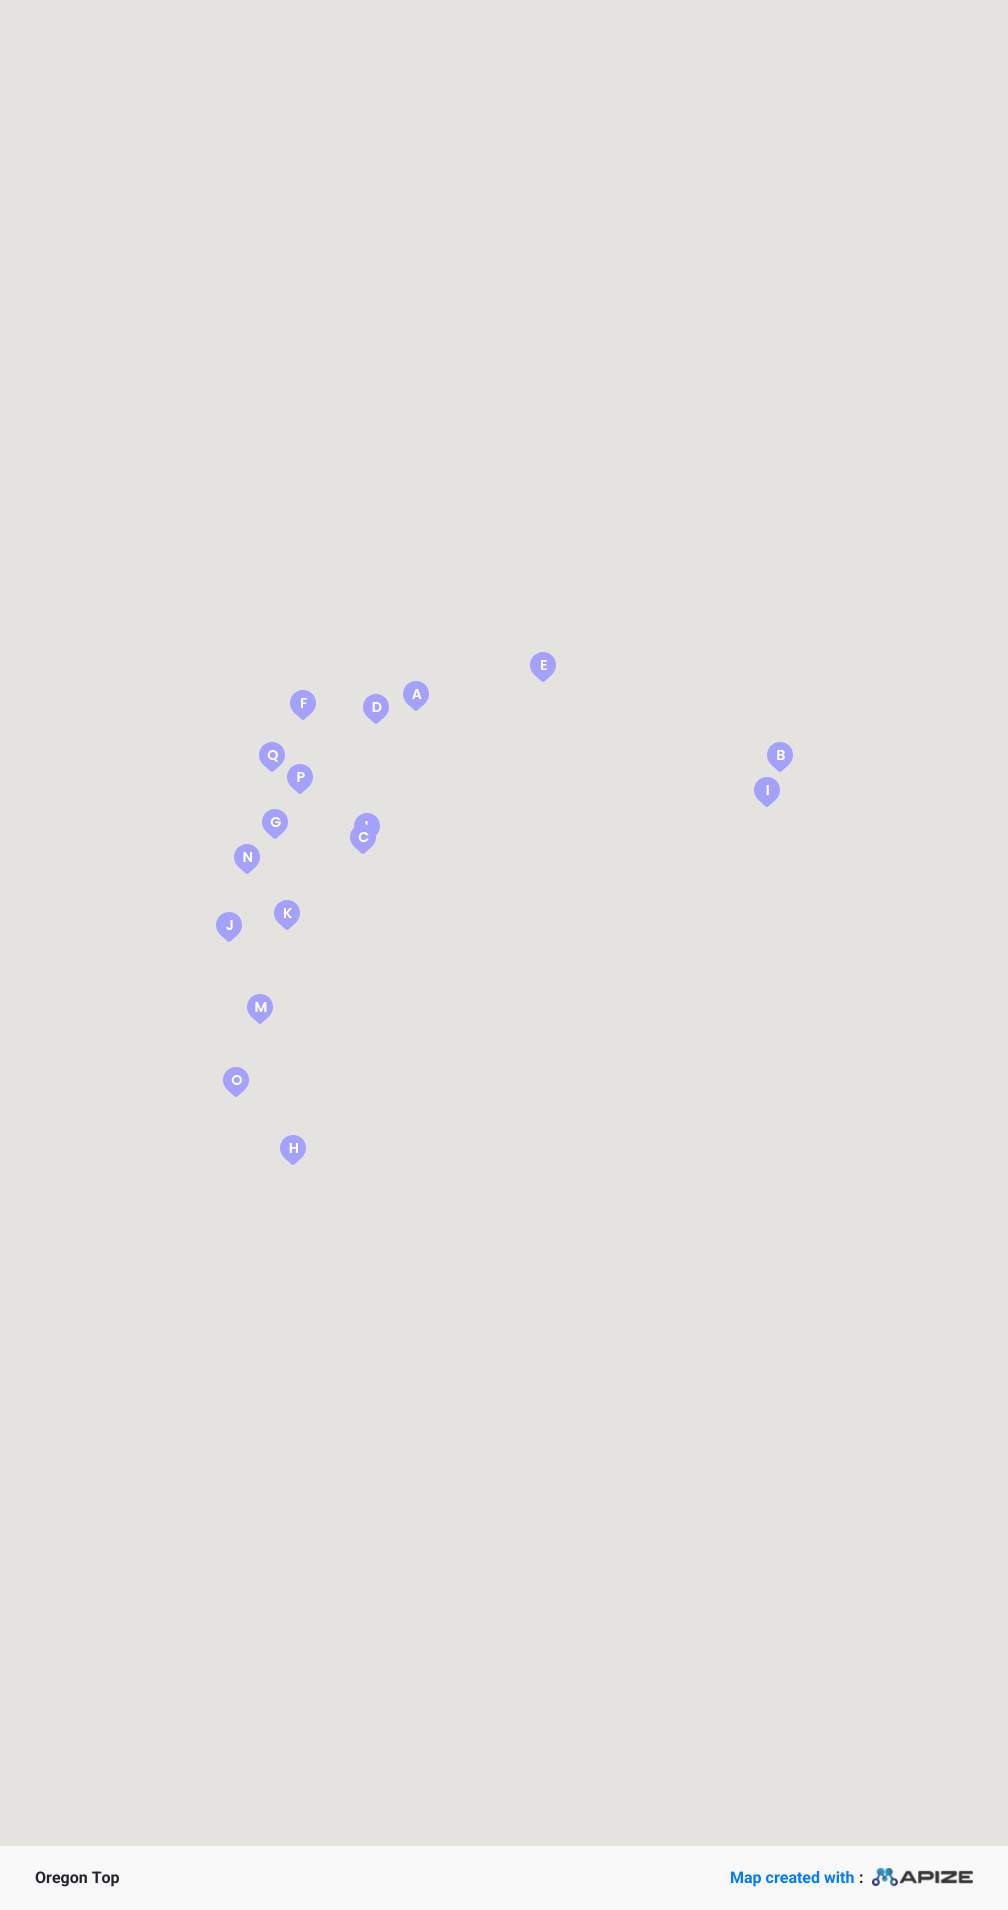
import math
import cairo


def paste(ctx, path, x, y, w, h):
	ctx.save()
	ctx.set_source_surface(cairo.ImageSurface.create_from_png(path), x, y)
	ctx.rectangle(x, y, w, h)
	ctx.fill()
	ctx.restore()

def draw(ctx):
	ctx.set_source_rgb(0.973, 0.973, 0.973)
	ctx.paint()
	ctx.set_source_rgb(0.898, 0.89, 0.875)
	ctx.rectangle(0, 0, 1008, 1846)
	ctx.fill()
	paste(ctx, 'media/1.png', 530, 652, 26, 30)
	paste(ctx, 'media/2.png', 290, 690, 26, 30)
	paste(ctx, 'media/3.png', 363, 694, 26, 30)
	paste(ctx, 'media/4.png', 403, 681, 26, 30)
	paste(ctx, 'media/5.png', 259, 742, 26, 30)
	paste(ctx, 'media/6.png', 767, 742, 26, 30)
	paste(ctx, 'media/7.png', 287, 764, 26, 30)
	paste(ctx, 'media/8.png', 754, 777, 26, 30)
	paste(ctx, 'media/9.png', 262, 809, 26, 30)
	paste(ctx, 'media/10.png', 354, 813, 26, 24)
	paste(ctx, 'media/11.png', 350, 824, 26, 30)
	paste(ctx, 'media/12.png', 234, 844, 26, 30)
	paste(ctx, 'media/13.png', 216, 912, 26, 30)
	paste(ctx, 'media/14.png', 274, 900, 26, 30)
	paste(ctx, 'media/15.png', 247, 994, 26, 30)
	paste(ctx, 'media/16.png', 223, 1067, 26, 30)
	paste(ctx, 'media/17.png', 280, 1135, 26, 30)
	ctx.select_font_face('Roboto', cairo.FONT_SLANT_NORMAL, cairo.FONT_WEIGHT_BOLD)
	ctx.set_font_size(16)
	ctx.set_source_rgb(0.129, 0.145, 0.161)
	ctx.move_to(35, 1883)
	ctx.show_text('Oregon Top')
	ctx.set_source_rgb(0, 0.482, 1)
	ctx.move_to(730, 1883)
	ctx.show_text('Map created with')
	ctx.set_source_rgb(0.129, 0.145, 0.161)
	ctx.move_to(859, 1883)
	ctx.show_text(':')
	paste(ctx, 'media/18.png', 872, 1868, 101, 18)


surface = cairo.ImageSurface(cairo.FORMAT_RGB24, 1008, 1910)
ctx = cairo.Context(surface)
options = cairo.FontOptions()
options.set_hint_metrics(cairo.HINT_METRICS_OFF)
options.set_hint_style(cairo.HINT_STYLE_NONE)
ctx.set_font_options(options)
ctx.set_miter_limit(4)
draw(ctx)
surface.write_to_png('image.png')
